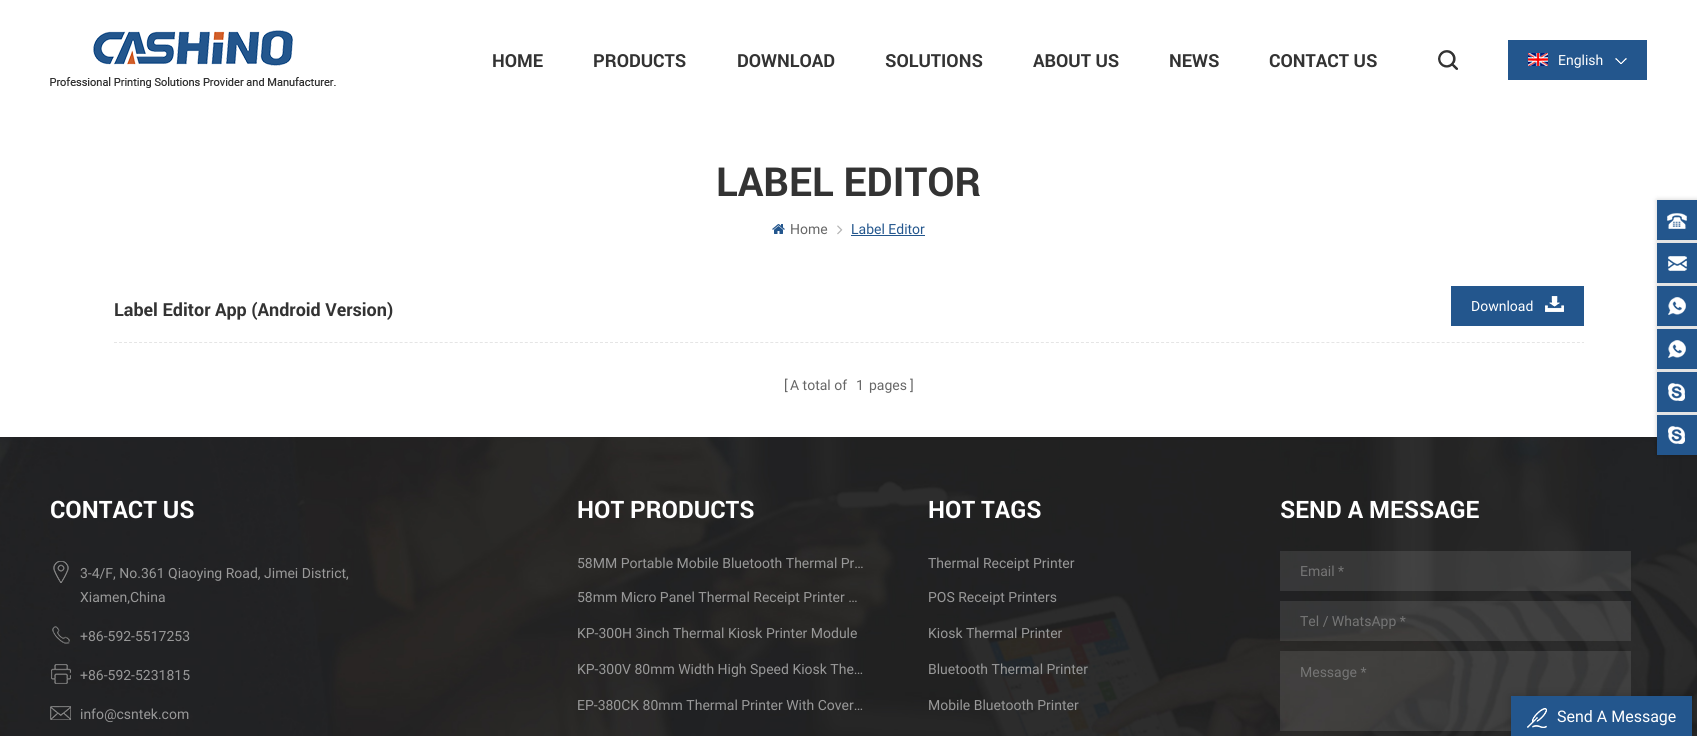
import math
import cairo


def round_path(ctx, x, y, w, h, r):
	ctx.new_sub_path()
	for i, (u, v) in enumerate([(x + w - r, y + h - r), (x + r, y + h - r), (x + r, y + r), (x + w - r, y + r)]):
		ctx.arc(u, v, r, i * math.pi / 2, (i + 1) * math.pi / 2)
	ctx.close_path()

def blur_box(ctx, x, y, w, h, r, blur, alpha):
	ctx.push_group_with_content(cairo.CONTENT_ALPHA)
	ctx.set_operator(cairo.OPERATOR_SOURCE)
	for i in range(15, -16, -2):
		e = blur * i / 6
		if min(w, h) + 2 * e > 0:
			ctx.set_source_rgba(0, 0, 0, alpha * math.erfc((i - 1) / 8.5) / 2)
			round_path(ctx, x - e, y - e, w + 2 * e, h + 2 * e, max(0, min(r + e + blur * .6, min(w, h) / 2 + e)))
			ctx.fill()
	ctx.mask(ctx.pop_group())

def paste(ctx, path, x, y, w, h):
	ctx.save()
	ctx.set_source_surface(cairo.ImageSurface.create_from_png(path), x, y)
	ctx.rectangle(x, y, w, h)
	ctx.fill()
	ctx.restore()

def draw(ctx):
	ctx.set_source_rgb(1, 1, 1)
	ctx.paint()
	paste(ctx, 'media/1.png', 50, 30, 286, 58)
	ctx.select_font_face('Roboto', cairo.FONT_SLANT_NORMAL, cairo.FONT_WEIGHT_BOLD)
	ctx.set_font_size(18)
	ctx.set_source_rgb(0.2, 0.2, 0.2)
	for x, y, s in [
		(492, 67, 'HOME'),
		(593, 67, 'PRODUCTS'),
		(737, 67, 'DOWNLOAD'),
		(885, 67, 'SOLUTIONS'),
		(1033, 67, 'ABOUT US'),
		(1169, 67, 'NEWS'),
		(1269, 67, 'CONTACT US'),
	]:
		ctx.move_to(x, y)
		ctx.show_text(s)
	paste(ctx, 'media/2.png', 1438, 50, 20, 20)
	ctx.set_source_rgb(0.137, 0.337, 0.553)
	ctx.rectangle(1508, 40, 139, 40)
	ctx.fill()
	paste(ctx, 'media/3.png', 1528, 53, 20, 13)
	ctx.select_font_face('Roboto')
	ctx.set_font_size(14)
	ctx.set_source_rgb(1, 1, 1)
	ctx.move_to(1558, 65)
	ctx.show_text('English')
	paste(ctx, 'media/4.png', 1615, 58, 12, 6)
	ctx.select_font_face('Roboto', cairo.FONT_SLANT_NORMAL, cairo.FONT_WEIGHT_BOLD)
	ctx.set_font_size(40)
	ctx.set_source_rgb(0.2, 0.2, 0.2)
	ctx.move_to(716, 196)
	ctx.show_text('LABEL EDITOR')
	paste(ctx, 'media/5.png', 772, 224, 13, 10)
	ctx.select_font_face('Roboto')
	ctx.set_font_size(14)
	ctx.set_source_rgb(0.4, 0.4, 0.4)
	ctx.move_to(790, 234)
	ctx.show_text('Home')
	paste(ctx, 'media/6.png', 837, 225, 6, 10)
	ctx.set_source_rgb(0.137, 0.337, 0.553)
	ctx.move_to(851, 234)
	ctx.show_text('Label Editor')
	ctx.rectangle(851, 235, 74, 1)
	ctx.fill()
	ctx.set_source_rgb(0, 0, 0)
	blur_box(ctx, 1657, 200, 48, 40, 0, 2.5, 0.2)
	ctx.set_source_rgb(0.137, 0.337, 0.553)
	ctx.rectangle(1657, 200, 40, 40)
	ctx.fill()
	paste(ctx, 'media/7.png', 1667, 213, 20, 16)
	ctx.set_source_rgb(0, 0, 0)
	blur_box(ctx, 1657, 243, 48, 40, 0, 2.5, 0.2)
	ctx.set_source_rgb(0.137, 0.337, 0.553)
	ctx.rectangle(1657, 243, 40, 40)
	ctx.fill()
	paste(ctx, 'media/8.png', 1668, 256, 19, 15)
	ctx.set_source_rgb(0, 0, 0)
	blur_box(ctx, 1657, 286, 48, 40, 0, 2.5, 0.2)
	ctx.set_source_rgb(0.137, 0.337, 0.553)
	ctx.rectangle(1657, 286, 40, 40)
	ctx.fill()
	paste(ctx, 'media/9.png', 1668, 297, 18, 18)
	ctx.set_source_rgb(0, 0, 0)
	blur_box(ctx, 1657, 329, 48, 40, 0, 2.5, 0.2)
	ctx.set_source_rgb(0.137, 0.337, 0.553)
	ctx.rectangle(1657, 329, 40, 40)
	ctx.fill()
	paste(ctx, 'media/9.png', 1668, 340, 18, 18)
	ctx.set_source_rgb(0, 0, 0)
	blur_box(ctx, 1657, 372, 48, 40, 0, 2.5, 0.2)
	ctx.set_source_rgb(0.137, 0.337, 0.553)
	ctx.rectangle(1657, 372, 40, 40)
	ctx.fill()
	paste(ctx, 'media/10.png', 1668, 383, 17, 18)
	paste(ctx, 'media/12.png', 0, 437, 1697, 299)
	ctx.set_source_rgb(0, 0, 0)
	blur_box(ctx, 1657, 415, 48, 40, 0, 2.5, 0.2)
	ctx.set_source_rgb(0.137, 0.337, 0.553)
	ctx.rectangle(1657, 415, 40, 40)
	ctx.fill()
	paste(ctx, 'media/10.png', 1668, 426, 17, 18)
	ctx.select_font_face('Roboto', cairo.FONT_SLANT_NORMAL, cairo.FONT_WEIGHT_BOLD)
	ctx.set_font_size(18)
	ctx.set_source_rgb(0.2, 0.2, 0.2)
	ctx.move_to(114, 316)
	ctx.show_text('Label Editor App (Android Version)')
	ctx.set_source_rgb(0.137, 0.337, 0.553)
	ctx.rectangle(1451, 286, 133, 40)
	ctx.fill()
	paste(ctx, 'media/11.png', 1545, 296, 19, 16)
	ctx.select_font_face('Roboto')
	ctx.set_font_size(14)
	ctx.set_source_rgb(1, 1, 1)
	ctx.move_to(1471, 311)
	ctx.show_text('Download')
	ctx.new_path()
	ctx.move_to(114, 342.5)
	ctx.line_to(1584, 342.5)
	ctx.set_source_rgb(0.898, 0.898, 0.898)
	ctx.set_line_width(1)
	ctx.set_dash([3, 2.01])
	ctx.stroke()
	ctx.set_source_rgb(0.4, 0.4, 0.4)
	for x, y, s in [
		(784, 390, '['),
		(790, 390, 'A total of'),
		(856, 390, '1'),
		(869, 390, 'pages'),
		(910, 390, ']'),
	]:
		ctx.move_to(x, y)
		ctx.show_text(s)
	ctx.select_font_face('Roboto', cairo.FONT_SLANT_NORMAL, cairo.FONT_WEIGHT_BOLD)
	ctx.set_font_size(24)
	ctx.set_source_rgb(1, 1, 1)
	ctx.move_to(50, 518)
	ctx.show_text('CONTACT US')
	paste(ctx, 'media/13.png', 53, 561, 16, 22)
	ctx.select_font_face('Roboto')
	ctx.set_font_size(14)
	ctx.set_source_rgb(0.6, 0.6, 0.6)
	ctx.move_to(80, 578)
	ctx.show_text('3-4/F, No.361 Qiaoying Road, Jimei District,')
	ctx.move_to(80, 602)
	ctx.show_text('Xiamen,China')
	paste(ctx, 'media/14.png', 52, 626, 18, 18)
	ctx.move_to(80, 641)
	ctx.show_text('+86-592-5517253')
	paste(ctx, 'media/15.png', 51, 664, 20, 20)
	ctx.move_to(80, 680)
	ctx.show_text('+86-592-5231815')
	paste(ctx, 'media/16.png', 50, 706, 21, 14)
	ctx.move_to(80, 719)
	ctx.show_text('info@csntek.com')
	ctx.select_font_face('Roboto', cairo.FONT_SLANT_NORMAL, cairo.FONT_WEIGHT_BOLD)
	ctx.set_font_size(24)
	ctx.set_source_rgb(1, 1, 1)
	ctx.move_to(577, 518)
	ctx.show_text('HOT PRODUCTS')
	ctx.select_font_face('Roboto')
	ctx.set_font_size(14)
	ctx.set_source_rgb(0.6, 0.6, 0.6)
	for x, y, s in [
		(577, 568, '58MM Portable Mobile Bluetooth Thermal Pr…'),
		(577, 602, '58mm Micro Panel Thermal Receipt Printer …'),
		(577, 638, 'KP-300H 3inch Thermal Kiosk Printer Module'),
		(577, 674, 'KP-300V 80mm Width High Speed Kiosk The…'),
		(577, 710, 'EP-380CK 80mm Thermal Printer With Cover…'),
	]:
		ctx.move_to(x, y)
		ctx.show_text(s)
	ctx.select_font_face('Roboto', cairo.FONT_SLANT_NORMAL, cairo.FONT_WEIGHT_BOLD)
	ctx.set_font_size(24)
	ctx.set_source_rgb(1, 1, 1)
	ctx.move_to(928, 518)
	ctx.show_text('HOT TAGS')
	ctx.select_font_face('Roboto')
	ctx.set_font_size(14)
	ctx.set_source_rgb(0.6, 0.6, 0.6)
	for x, y, s in [
		(928, 568, 'Thermal Receipt Printer'),
		(928, 602, 'POS Receipt Printers'),
		(928, 638, 'Kiosk Thermal Printer'),
		(928, 674, 'Bluetooth Thermal Printer'),
		(928, 710, 'Mobile Bluetooth Printer'),
	]:
		ctx.move_to(x, y)
		ctx.show_text(s)
	ctx.select_font_face('Roboto', cairo.FONT_SLANT_NORMAL, cairo.FONT_WEIGHT_BOLD)
	ctx.set_font_size(24)
	ctx.set_source_rgb(1, 1, 1)
	ctx.move_to(1280, 518)
	ctx.show_text('SEND A MESSAGE')
	ctx.set_source_rgba(1, 1, 1, 0.1)
	ctx.rectangle(1280, 551, 351, 40)
	ctx.fill()
	ctx.select_font_face('Roboto')
	ctx.set_font_size(14)
	ctx.set_source_rgb(0.459, 0.459, 0.459)
	ctx.move_to(1300, 576)
	ctx.show_text('Email *')
	ctx.set_source_rgba(1, 1, 1, 0.1)
	ctx.rectangle(1280, 601, 351, 40)
	ctx.fill()
	ctx.set_source_rgb(0.459, 0.459, 0.459)
	ctx.move_to(1300, 626)
	ctx.show_text('Tel / WhatsApp *')
	ctx.set_source_rgba(1, 1, 1, 0.1)
	ctx.rectangle(1280, 651, 351, 80)
	ctx.fill()
	ctx.set_source_rgb(0.459, 0.459, 0.459)
	ctx.move_to(1300, 677)
	ctx.show_text('Message *')
	ctx.set_source_rgb(0, 0, 0)
	blur_box(ctx, 1511, 696, 181, 40, 0, 5, 0.2)
	ctx.set_source_rgb(0.137, 0.337, 0.553)
	ctx.rectangle(1511, 696, 181, 40)
	ctx.fill()
	paste(ctx, 'media/17.png', 1527, 708, 20, 20)
	ctx.set_font_size(16)
	ctx.set_source_rgb(1, 1, 1)
	ctx.move_to(1557, 722)
	ctx.show_text('Send A Message')


surface = cairo.ImageSurface(cairo.FORMAT_RGB24, 1697, 736)
ctx = cairo.Context(surface)
options = cairo.FontOptions()
options.set_hint_metrics(cairo.HINT_METRICS_OFF)
options.set_hint_style(cairo.HINT_STYLE_NONE)
ctx.set_font_options(options)
ctx.set_miter_limit(4)
draw(ctx)
surface.write_to_png('image.png')
